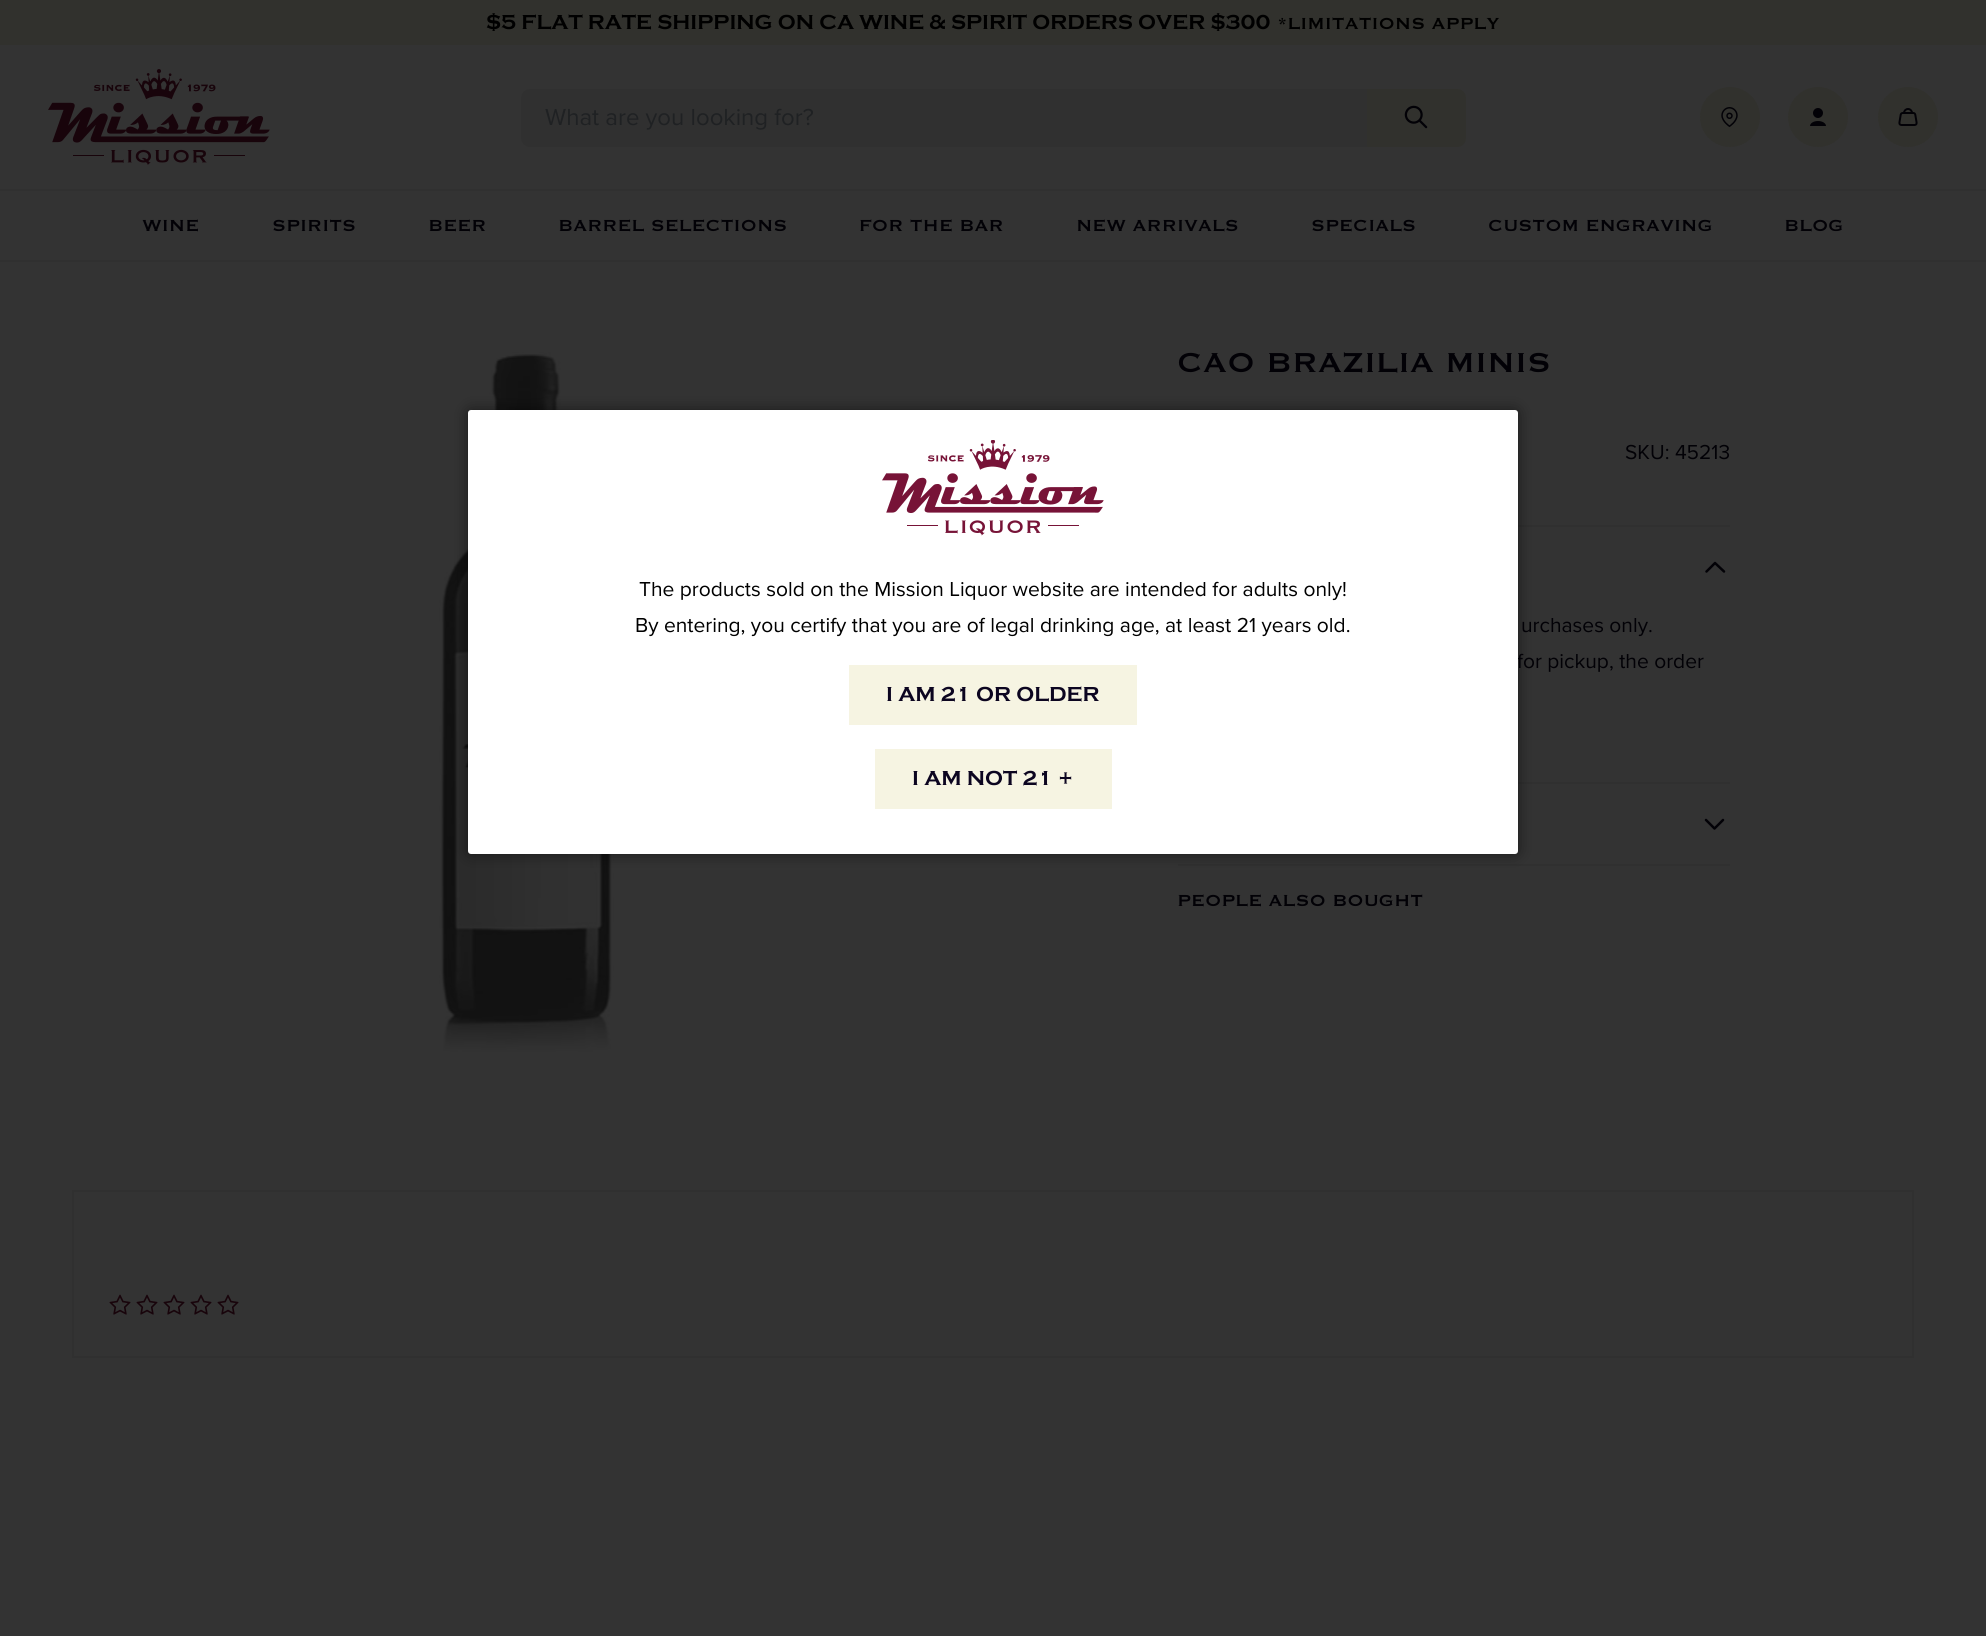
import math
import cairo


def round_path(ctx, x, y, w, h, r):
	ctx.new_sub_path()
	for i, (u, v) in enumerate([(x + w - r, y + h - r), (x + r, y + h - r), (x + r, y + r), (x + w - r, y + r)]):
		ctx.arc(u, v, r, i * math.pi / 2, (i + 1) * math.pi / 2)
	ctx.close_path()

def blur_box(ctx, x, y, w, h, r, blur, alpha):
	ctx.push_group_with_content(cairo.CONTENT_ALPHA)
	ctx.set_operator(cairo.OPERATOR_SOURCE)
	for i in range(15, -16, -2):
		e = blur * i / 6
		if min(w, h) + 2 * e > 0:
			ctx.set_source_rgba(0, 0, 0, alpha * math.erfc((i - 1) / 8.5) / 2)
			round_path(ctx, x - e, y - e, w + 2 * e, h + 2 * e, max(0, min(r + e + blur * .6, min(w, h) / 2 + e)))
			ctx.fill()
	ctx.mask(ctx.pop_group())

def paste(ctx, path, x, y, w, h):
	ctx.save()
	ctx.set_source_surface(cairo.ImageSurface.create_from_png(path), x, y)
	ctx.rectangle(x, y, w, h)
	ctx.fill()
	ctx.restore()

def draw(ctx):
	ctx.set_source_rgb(0.2, 0.2, 0.2)
	ctx.paint()
	ctx.set_source_rgb(0.192, 0.192, 0.176)
	ctx.rectangle(0, 0, 1986, 45)
	ctx.fill()
	ctx.select_font_face('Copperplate', cairo.FONT_SLANT_NORMAL, cairo.FONT_WEIGHT_BOLD)
	ctx.set_font_size(21)
	ctx.set_source_rgb(0, 0, 0)
	ctx.move_to(486, 29)
	ctx.show_text('$5 FLAT RATE SHIPPING ON CA WINE & SPIRIT ORDERS OVER $300')
	ctx.select_font_face('Copperplate')
	ctx.move_to(1277, 29)
	ctx.show_text('*LIMITATIONS APPLY')
	ctx.set_source_rgb(0.188, 0.188, 0.188)
	ctx.rectangle(0, 189, 1986, 2)
	ctx.fill()
	paste(ctx, 'media/1.png', 48, 69, 222, 96)
	ctx.new_path()
	ctx.move_to(530, 89)
	ctx.line_to(1367, 89)
	ctx.line_to(1367, 147)
	ctx.line_to(530, 147)
	ctx.curve_to(525, 147, 521, 143, 521, 138)
	ctx.line_to(521, 98)
	ctx.curve_to(521, 93, 525, 89, 530, 89)
	ctx.close_path()
	ctx.fill()
	ctx.select_font_face('Proxima Nova')
	ctx.set_font_size(24)
	ctx.set_source_rgb(0.122, 0.129, 0.137)
	ctx.move_to(545, 125)
	ctx.show_text('What are you looking for?')
	ctx.set_source_rgb(0.192, 0.192, 0.176)
	ctx.new_path()
	ctx.move_to(1367, 89)
	ctx.line_to(1457, 89)
	ctx.curve_to(1462, 89, 1466, 93, 1466, 98)
	ctx.line_to(1466, 138)
	ctx.curve_to(1466, 143, 1462, 147, 1457, 147)
	ctx.line_to(1367, 147)
	ctx.close_path()
	ctx.fill()
	paste(ctx, 'media/2.png', 1404, 105, 24, 24)
	ctx.arc(1730, 117, 30, 0, 2 * math.pi)
	ctx.fill()
	paste(ctx, 'media/3.png', 1721, 107, 17, 21)
	ctx.arc(1818, 117, 30, 0, 2 * math.pi)
	ctx.fill()
	paste(ctx, 'media/4.png', 1810, 108, 16, 18)
	ctx.arc(1908, 117, 30, 0, 2 * math.pi)
	ctx.fill()
	paste(ctx, 'media/5.png', 1898, 108, 20, 18)
	ctx.set_source_rgb(0.188, 0.188, 0.188)
	ctx.rectangle(0, 260, 1986, 2)
	ctx.fill()
	ctx.select_font_face('Copperplate')
	ctx.set_font_size(21)
	ctx.set_source_rgb(0.008, 0.004, 0.024)
	for x, y, s in [
		(142, 231, 'WINE'),
		(272, 231, 'SPIRITS'),
		(428, 231, 'BEER'),
		(558, 231, 'BARREL SELECTIONS'),
		(859, 231, 'FOR THE BAR'),
		(1076, 231, 'NEW ARRIVALS'),
		(1311, 231, 'SPECIALS'),
		(1488, 231, 'CUSTOM ENGRAVING'),
		(1784, 231, 'BLOG'),
	]:
		ctx.move_to(x, y)
		ctx.show_text(s)
	paste(ctx, 'media/7.png', 439, 352, 175, 700)
	ctx.set_source_rgb(0.188, 0.188, 0.188)
	ctx.rectangle(1178, 864, 552, 2)
	ctx.rectangle(1518, 525, 212, 2)
	ctx.rectangle(1518, 782, 212, 2)
	ctx.fill()
	ctx.set_source_rgb(0, 0, 0)
	blur_box(ctx, 468, 410, 1050, 444, 3, 7.5, 0.5)
	ctx.select_font_face('Proxima Nova')
	ctx.set_source_rgb(0.008, 0.004, 0.024)
	ctx.move_to(1517, 668)
	ctx.show_text('for pickup, the order')
	ctx.set_source_rgb(1, 1, 1)
	round_path(ctx, 468, 410, 1050, 444, 3)
	ctx.fill()
	paste(ctx, 'media/6.png', 882, 440, 222, 96)
	ctx.set_source_rgb(0, 0, 0)
	ctx.move_to(639, 596)
	ctx.show_text('The products sold on the Mission Liquor website are intended for adults only!')
	ctx.move_to(635, 632)
	ctx.show_text('By entering, you certify that you are of legal drinking age, at least 21 years old.')
	ctx.set_source_rgb(0.961, 0.957, 0.886)
	ctx.rectangle(849, 665, 288, 60)
	ctx.fill()
	ctx.select_font_face('Copperplate', cairo.FONT_SLANT_NORMAL, cairo.FONT_WEIGHT_BOLD)
	ctx.set_source_rgb(0.047, 0.02, 0.125)
	ctx.move_to(886, 701)
	ctx.show_text('I AM 21 OR OLDER')
	ctx.set_source_rgb(0.961, 0.957, 0.886)
	ctx.rectangle(875, 749, 237, 60)
	ctx.fill()
	ctx.set_source_rgb(0.047, 0.02, 0.125)
	ctx.move_to(912, 785)
	ctx.show_text('I AM NOT 21 +')
	ctx.select_font_face('Copperplate')
	ctx.set_font_size(36)
	ctx.set_source_rgb(0.008, 0.004, 0.024)
	ctx.move_to(1177, 372)
	ctx.show_text('CAO BRAZILIA MINIS')
	ctx.select_font_face('Proxima Nova')
	ctx.set_font_size(21)
	ctx.move_to(1625, 459)
	ctx.show_text('SKU: 45213')
	ctx.new_path()
	ctx.move_to(1706.5, 571.5)
	ctx.line_to(1715, 563)
	ctx.line_to(1724, 571.5)
	ctx.set_line_width(2.5)
	ctx.set_line_cap(cairo.LINE_CAP_ROUND)
	ctx.set_line_join(cairo.LINE_JOIN_ROUND)
	ctx.stroke()
	ctx.move_to(1521, 632)
	ctx.show_text('urchases only.')
	ctx.new_path()
	ctx.move_to(1723, 820)
	ctx.line_to(1714.5, 828.5)
	ctx.line_to(1706, 820)
	ctx.stroke()
	ctx.select_font_face('Copperplate')
	ctx.move_to(1177, 906)
	ctx.show_text('PEOPLE ALSO BOUGHT')
	ctx.rectangle(73, 1191, 1840, 166)
	ctx.set_source_rgb(0.188, 0.188, 0.188)
	ctx.set_line_width(2)
	ctx.set_line_cap(cairo.LINE_CAP_BUTT)
	ctx.set_line_join(cairo.LINE_JOIN_MITER)
	ctx.stroke()
	paste(ctx, 'media/8.png', 109, 1294, 22, 21)
	paste(ctx, 'media/8.png', 136, 1294, 22, 21)
	paste(ctx, 'media/8.png', 163, 1294, 22, 21)
	paste(ctx, 'media/8.png', 190, 1294, 22, 21)
	paste(ctx, 'media/8.png', 217, 1294, 22, 21)


surface = cairo.ImageSurface(cairo.FORMAT_RGB24, 1986, 1636)
ctx = cairo.Context(surface)
options = cairo.FontOptions()
options.set_hint_metrics(cairo.HINT_METRICS_OFF)
options.set_hint_style(cairo.HINT_STYLE_NONE)
ctx.set_font_options(options)
ctx.set_miter_limit(4)
draw(ctx)
surface.write_to_png('image.png')
